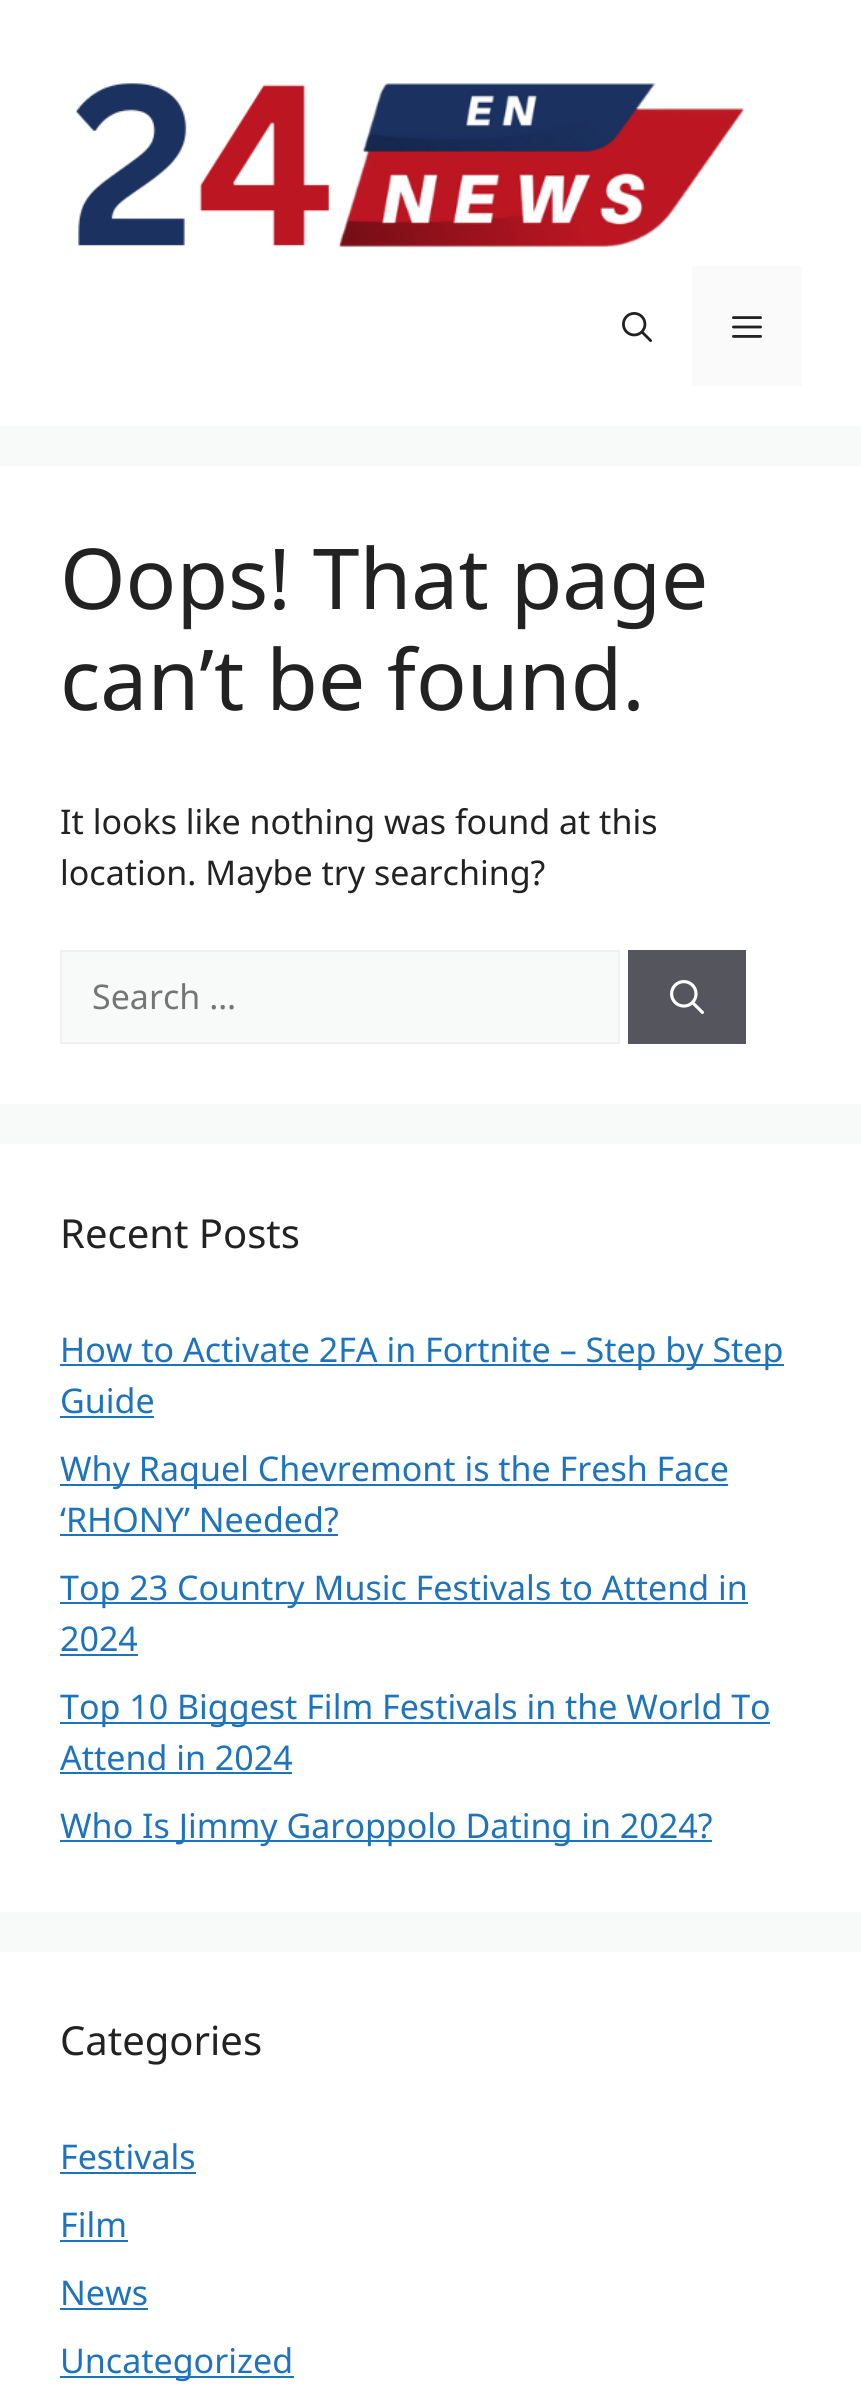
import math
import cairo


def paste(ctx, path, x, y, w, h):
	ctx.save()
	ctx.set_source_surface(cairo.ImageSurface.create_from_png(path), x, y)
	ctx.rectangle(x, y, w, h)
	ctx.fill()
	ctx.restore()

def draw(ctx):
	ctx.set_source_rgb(0.969, 0.973, 0.976)
	ctx.paint()
	ctx.set_source_rgb(1, 1, 1)
	ctx.rectangle(0, 0, 861, 426)
	ctx.fill()
	paste(ctx, 'media/1.png', 75, 83, 669, 165)
	paste(ctx, 'media/2.png', 622, 312, 30, 30)
	ctx.set_source_rgb(0.98, 0.98, 0.98)
	ctx.rectangle(692, 266, 110, 120)
	ctx.fill()
	paste(ctx, 'media/3.png', 732, 316, 30, 22)
	ctx.set_source_rgb(1, 1, 1)
	ctx.rectangle(0, 466, 861, 638)
	ctx.fill()
	ctx.select_font_face('Noto Sans')
	ctx.set_font_size(84)
	ctx.set_source_rgb(0.133, 0.133, 0.133)
	ctx.move_to(60, 609)
	ctx.show_text('Oops! That page')
	ctx.move_to(60, 710)
	ctx.show_text('can’t be found.')
	ctx.set_font_size(34)
	ctx.move_to(60, 834)
	ctx.show_text('It looks like nothing was found at this')
	ctx.move_to(60, 885)
	ctx.show_text('location. Maybe try searching?')
	ctx.set_source_rgb(0.969, 0.973, 0.976)
	ctx.rectangle(61, 951, 558, 92)
	ctx.fill_preserve()
	ctx.set_source_rgb(0.941, 0.941, 0.941)
	ctx.stroke()
	ctx.set_source_rgb(0.459, 0.459, 0.459)
	ctx.move_to(92, 1009)
	ctx.show_text('Search …')
	ctx.set_source_rgb(0.333, 0.333, 0.369)
	ctx.rectangle(628, 950, 118, 94)
	ctx.fill()
	paste(ctx, 'media/4.png', 670, 980, 34, 34)
	ctx.set_source_rgb(1, 1, 1)
	ctx.rectangle(0, 1144, 861, 768)
	ctx.fill()
	ctx.set_font_size(40)
	ctx.set_source_rgb(0.133, 0.133, 0.133)
	ctx.move_to(60, 1248)
	ctx.show_text('Recent Posts')
	ctx.set_source_rgb(0.118, 0.451, 0.745)
	ctx.rectangle(60, 1364, 724, 2)
	ctx.fill()
	ctx.set_font_size(34)
	ctx.move_to(60, 1362)
	ctx.show_text('How to Activate 2FA in Fortnite – Step by Step')
	ctx.move_to(60, 1413)
	ctx.show_text('Guide')
	ctx.rectangle(60, 1416, 94, 2)
	ctx.fill()
	ctx.rectangle(60, 1484, 668, 2)
	ctx.fill()
	ctx.move_to(60, 1481)
	ctx.show_text('Why Raquel Chevremont is the Fresh Face')
	ctx.move_to(60, 1532)
	ctx.show_text('‘RHONY’ Needed?')
	ctx.rectangle(60, 1534, 278, 2)
	ctx.fill()
	ctx.rectangle(60, 1602, 688, 2)
	ctx.fill()
	ctx.move_to(60, 1600)
	ctx.show_text('Top 23 Country Music Festivals to Attend in')
	ctx.move_to(60, 1651)
	ctx.show_text('2024')
	ctx.rectangle(60, 1654, 78, 2)
	ctx.fill()
	ctx.rectangle(60, 1722, 710, 2)
	ctx.fill()
	ctx.move_to(60, 1719)
	ctx.show_text('Top 10 Biggest Film Festivals in the World To')
	ctx.move_to(60, 1770)
	ctx.show_text('Attend in 2024')
	ctx.rectangle(60, 1772, 232, 2)
	ctx.fill()
	ctx.rectangle(60, 1840, 652, 2)
	ctx.fill()
	ctx.move_to(60, 1838)
	ctx.show_text('Who Is Jimmy Garoppolo Dating in 2024?')
	ctx.set_source_rgb(1, 1, 1)
	ctx.rectangle(0, 1952, 861, 448)
	ctx.fill()
	ctx.set_font_size(40)
	ctx.set_source_rgb(0.133, 0.133, 0.133)
	ctx.move_to(60, 2055)
	ctx.show_text('Categories')
	ctx.set_font_size(34)
	ctx.set_source_rgb(0.118, 0.451, 0.745)
	ctx.move_to(60, 2169)
	ctx.show_text('Festivals')
	ctx.rectangle(60, 2172, 136, 2)
	ctx.fill()
	ctx.move_to(60, 2237)
	ctx.show_text('Film')
	ctx.rectangle(60, 2240, 68, 2)
	ctx.fill()
	ctx.move_to(60, 2305)
	ctx.show_text('News')
	ctx.rectangle(60, 2308, 88, 2)
	ctx.fill()
	ctx.rectangle(60, 2376, 234, 2)
	ctx.fill()
	ctx.move_to(60, 2373)
	ctx.show_text('Uncategorized')


surface = cairo.ImageSurface(cairo.FORMAT_RGB24, 861, 2400)
ctx = cairo.Context(surface)
options = cairo.FontOptions()
options.set_hint_metrics(cairo.HINT_METRICS_OFF)
options.set_hint_style(cairo.HINT_STYLE_NONE)
ctx.set_font_options(options)
ctx.set_miter_limit(4)
draw(ctx)
surface.write_to_png('image.png')
